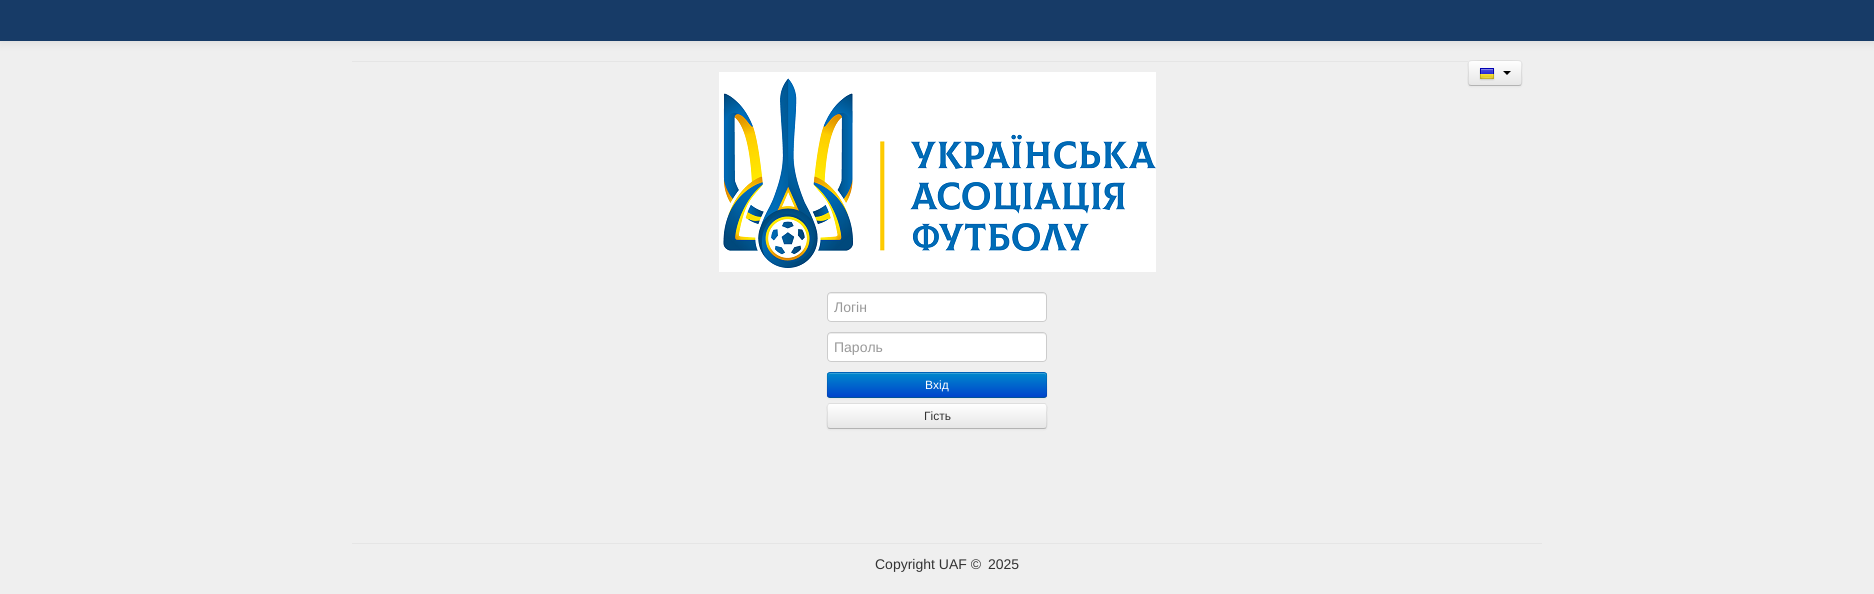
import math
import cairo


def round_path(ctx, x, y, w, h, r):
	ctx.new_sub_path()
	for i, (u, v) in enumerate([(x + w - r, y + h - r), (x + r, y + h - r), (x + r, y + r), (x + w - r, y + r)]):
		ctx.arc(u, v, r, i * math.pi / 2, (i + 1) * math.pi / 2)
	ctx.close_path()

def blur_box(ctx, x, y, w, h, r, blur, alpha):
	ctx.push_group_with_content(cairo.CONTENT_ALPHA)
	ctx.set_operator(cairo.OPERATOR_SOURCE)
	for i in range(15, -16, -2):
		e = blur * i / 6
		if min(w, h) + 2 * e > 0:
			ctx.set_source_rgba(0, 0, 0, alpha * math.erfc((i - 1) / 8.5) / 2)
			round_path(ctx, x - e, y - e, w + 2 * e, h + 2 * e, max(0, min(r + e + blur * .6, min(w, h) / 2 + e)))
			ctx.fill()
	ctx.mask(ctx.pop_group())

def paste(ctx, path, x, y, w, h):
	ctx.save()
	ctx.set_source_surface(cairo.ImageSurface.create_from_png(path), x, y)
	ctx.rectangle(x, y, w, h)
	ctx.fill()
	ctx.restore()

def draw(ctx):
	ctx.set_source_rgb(0.937, 0.937, 0.937)
	ctx.paint()
	ctx.set_source_rgb(0, 0, 0)
	blur_box(ctx, 0, 1, 1874, 41, 0, 5, 0.1)
	ctx.set_source_rgb(0.09, 0.231, 0.404)
	ctx.rectangle(0, 0, 1874, 41)
	ctx.fill()
	ctx.set_source_rgb(0.898, 0.898, 0.898)
	ctx.rectangle(352, 61, 1170, 1)
	ctx.fill()
	ctx.set_source_rgb(0, 0, 0)
	blur_box(ctx, 1468, 61, 54, 26, 3, 1, 0.05)
	ctx.set_source_rgb(0.961, 0.961, 0.961)
	round_path(ctx, 1468, 60, 54, 26, 3)
	ctx.fill()
	ctx.save()
	round_path(ctx, 1468, 60, 54, 26, 3)
	ctx.clip()
	gradient = cairo.LinearGradient(1495, 61, 1495, 85)
	gradient.add_color_stop_rgba(0, 1, 1, 1, 1)
	gradient.add_color_stop_rgba(1, 0.902, 0.902, 0.902, 1)
	ctx.set_source(gradient)
	ctx.rectangle(1468, 61, 54, 24)
	ctx.fill()
	ctx.restore()
	ctx.set_source_rgb(0.996, 0.996, 0.996)
	ctx.new_path()
	ctx.move_to(1471, 62)
	ctx.line_to(1519, 62)
	ctx.curve_to(1520, 62, 1521, 63, 1521, 64)
	ctx.curve_to(1521, 59, 1515, 61, 1511, 61)
	ctx.line_to(1479, 61)
	ctx.curve_to(1475, 61, 1469, 59, 1469, 64)
	ctx.curve_to(1469, 63, 1470, 62, 1471, 62)
	ctx.close_path()
	ctx.fill()
	ctx.new_path()
	ctx.move_to(1521, 85)
	ctx.line_to(1519, 85.5)
	ctx.line_to(1471, 85.5)
	ctx.line_to(1469, 85)
	ctx.set_source_rgb(0.702, 0.702, 0.702)
	ctx.set_line_width(1)
	ctx.stroke()
	ctx.new_path()
	ctx.move_to(1469, 85)
	ctx.curve_to(1467.5, 83, 1468.5, 75.5, 1468.5, 73)
	ctx.curve_to(1468.5, 59.5, 1466, 60.5, 1479, 60.5)
	ctx.line_to(1511, 60.5)
	ctx.curve_to(1524, 60.5, 1521.5, 59.5, 1521.5, 73)
	ctx.curve_to(1521.5, 75.5, 1522.5, 83, 1521, 85)
	ctx.set_source_rgba(0, 0, 0, 0.1)
	ctx.stroke()
	paste(ctx, 'media/1.png', 1479, 68, 16, 13)
	ctx.set_source_rgb(0, 0, 0)
	ctx.new_path()
	ctx.move_to(1503, 71)
	ctx.line_to(1511, 71)
	ctx.line_to(1507, 75)
	ctx.close_path()
	ctx.fill()
	paste(ctx, 'media/2.png', 719, 72, 437, 200)
	ctx.set_source_rgb(1, 1, 1)
	round_path(ctx, 827, 292, 220, 30, 4)
	ctx.fill()
	ctx.set_source_rgb(0.925, 0.925, 0.925)
	ctx.new_path()
	ctx.move_to(831, 294)
	ctx.line_to(1043, 294)
	ctx.curve_to(1045, 294, 1046, 295, 1046, 297)
	ctx.line_to(1046, 296)
	ctx.curve_to(1046, 294, 1045, 293, 1043, 293)
	ctx.line_to(831, 293)
	ctx.curve_to(829, 293, 828, 294, 828, 296)
	ctx.line_to(828, 297)
	ctx.curve_to(828, 295, 829, 294, 831, 294)
	ctx.close_path()
	ctx.fill()
	round_path(ctx, 827.5, 292.5, 219, 29, 3.5)
	ctx.set_source_rgb(0.8, 0.8, 0.8)
	ctx.stroke()
	ctx.select_font_face('Liberation Sans')
	ctx.set_font_size(14)
	ctx.set_source_rgb(0.6, 0.6, 0.6)
	ctx.move_to(834, 312)
	ctx.show_text('Логін')
	ctx.set_source_rgb(1, 1, 1)
	round_path(ctx, 827, 332, 220, 30, 4)
	ctx.fill()
	ctx.set_source_rgb(0.925, 0.925, 0.925)
	ctx.new_path()
	ctx.move_to(831, 334)
	ctx.line_to(1043, 334)
	ctx.curve_to(1045, 334, 1046, 335, 1046, 337)
	ctx.line_to(1046, 336)
	ctx.curve_to(1046, 334, 1045, 333, 1043, 333)
	ctx.line_to(831, 333)
	ctx.curve_to(829, 333, 828, 334, 828, 336)
	ctx.line_to(828, 337)
	ctx.curve_to(828, 335, 829, 334, 831, 334)
	ctx.close_path()
	ctx.fill()
	round_path(ctx, 827.5, 332.5, 219, 29, 3.5)
	ctx.set_source_rgb(0.8, 0.8, 0.8)
	ctx.stroke()
	ctx.set_source_rgb(0.6, 0.6, 0.6)
	ctx.move_to(834, 352)
	ctx.show_text('Пароль')
	ctx.set_source_rgb(0, 0, 0)
	blur_box(ctx, 827, 373, 220, 26, 3, 1, 0.05)
	ctx.set_source_rgb(0, 0.427, 0.8)
	round_path(ctx, 827, 372, 220, 26, 3)
	ctx.fill()
	ctx.save()
	round_path(ctx, 827, 372, 220, 26, 3)
	ctx.clip()
	gradient = cairo.LinearGradient(937, 373, 937, 397)
	gradient.add_color_stop_rgba(0, 0, 0.533, 0.8, 1)
	gradient.add_color_stop_rgba(1, 0, 0.267, 0.8, 1)
	ctx.set_source(gradient)
	ctx.rectangle(827, 373, 220, 24)
	ctx.fill()
	ctx.restore()
	ctx.set_source_rgba(1, 1, 1, 0.2)
	ctx.new_path()
	ctx.move_to(830, 374)
	ctx.line_to(1044, 374)
	ctx.curve_to(1045, 374, 1046, 375, 1046, 376)
	ctx.curve_to(1046, 375, 1046, 373, 1044, 373)
	ctx.line_to(830, 373)
	ctx.line_to(829, 374)
	ctx.line_to(828, 376)
	ctx.curve_to(828, 375, 829, 374, 830, 374)
	ctx.close_path()
	ctx.fill()
	ctx.new_path()
	ctx.move_to(1046, 397)
	ctx.line_to(1044, 397.5)
	ctx.line_to(830, 397.5)
	ctx.line_to(828, 397)
	ctx.set_source_rgba(0, 0, 0, 0.25)
	ctx.stroke()
	ctx.new_path()
	ctx.move_to(828, 397)
	ctx.curve_to(826.5, 395, 827.5, 384.5, 827.5, 381.5)
	ctx.curve_to(827.5, 380, 826, 372.5, 830, 372.5)
	ctx.line_to(1044, 372.5)
	ctx.curve_to(1048, 372.5, 1046.5, 380, 1046.5, 381.5)
	ctx.curve_to(1046.5, 384.5, 1047.5, 395, 1046, 397)
	ctx.set_source_rgba(0, 0, 0, 0.1)
	ctx.stroke()
	ctx.set_font_size(12)
	ctx.set_source_rgb(1, 1, 1)
	ctx.move_to(925, 389)
	ctx.show_text('Вхід')
	ctx.set_source_rgb(0, 0, 0)
	blur_box(ctx, 827, 404, 220, 26, 3, 1, 0.05)
	ctx.set_source_rgb(0.961, 0.961, 0.961)
	round_path(ctx, 827, 403, 220, 26, 3)
	ctx.fill()
	ctx.save()
	round_path(ctx, 827, 403, 220, 26, 3)
	ctx.clip()
	gradient = cairo.LinearGradient(937, 404, 937, 428)
	gradient.add_color_stop_rgba(0, 1, 1, 1, 1)
	gradient.add_color_stop_rgba(1, 0.902, 0.902, 0.902, 1)
	ctx.set_source(gradient)
	ctx.rectangle(827, 404, 220, 24)
	ctx.fill()
	ctx.restore()
	ctx.new_path()
	ctx.move_to(1046, 428)
	ctx.line_to(1044, 428.5)
	ctx.line_to(830, 428.5)
	ctx.line_to(828, 428)
	ctx.set_source_rgb(0.702, 0.702, 0.702)
	ctx.stroke()
	ctx.new_path()
	ctx.move_to(828, 428)
	ctx.curve_to(826.5, 426, 827.5, 415.5, 827.5, 412.5)
	ctx.curve_to(827.5, 411, 826, 403.5, 830, 403.5)
	ctx.line_to(1044, 403.5)
	ctx.curve_to(1048, 403.5, 1046.5, 411, 1046.5, 412.5)
	ctx.curve_to(1046.5, 415.5, 1047.5, 426, 1046, 428)
	ctx.set_source_rgba(0, 0, 0, 0.1)
	ctx.stroke()
	ctx.set_source_rgb(0.2, 0.2, 0.2)
	ctx.move_to(924, 420)
	ctx.show_text('Гість')
	ctx.set_source_rgb(0.898, 0.898, 0.898)
	ctx.rectangle(352, 543, 1190, 1)
	ctx.fill()
	ctx.set_font_size(14)
	ctx.set_source_rgb(0.2, 0.2, 0.2)
	ctx.move_to(875, 569)
	ctx.show_text('Copyright UAF ©')
	ctx.move_to(988, 569)
	ctx.show_text('2025')


surface = cairo.ImageSurface(cairo.FORMAT_RGB24, 1874, 594)
ctx = cairo.Context(surface)
options = cairo.FontOptions()
options.set_hint_metrics(cairo.HINT_METRICS_OFF)
options.set_hint_style(cairo.HINT_STYLE_NONE)
ctx.set_font_options(options)
ctx.set_miter_limit(4)
draw(ctx)
surface.write_to_png('image.png')
